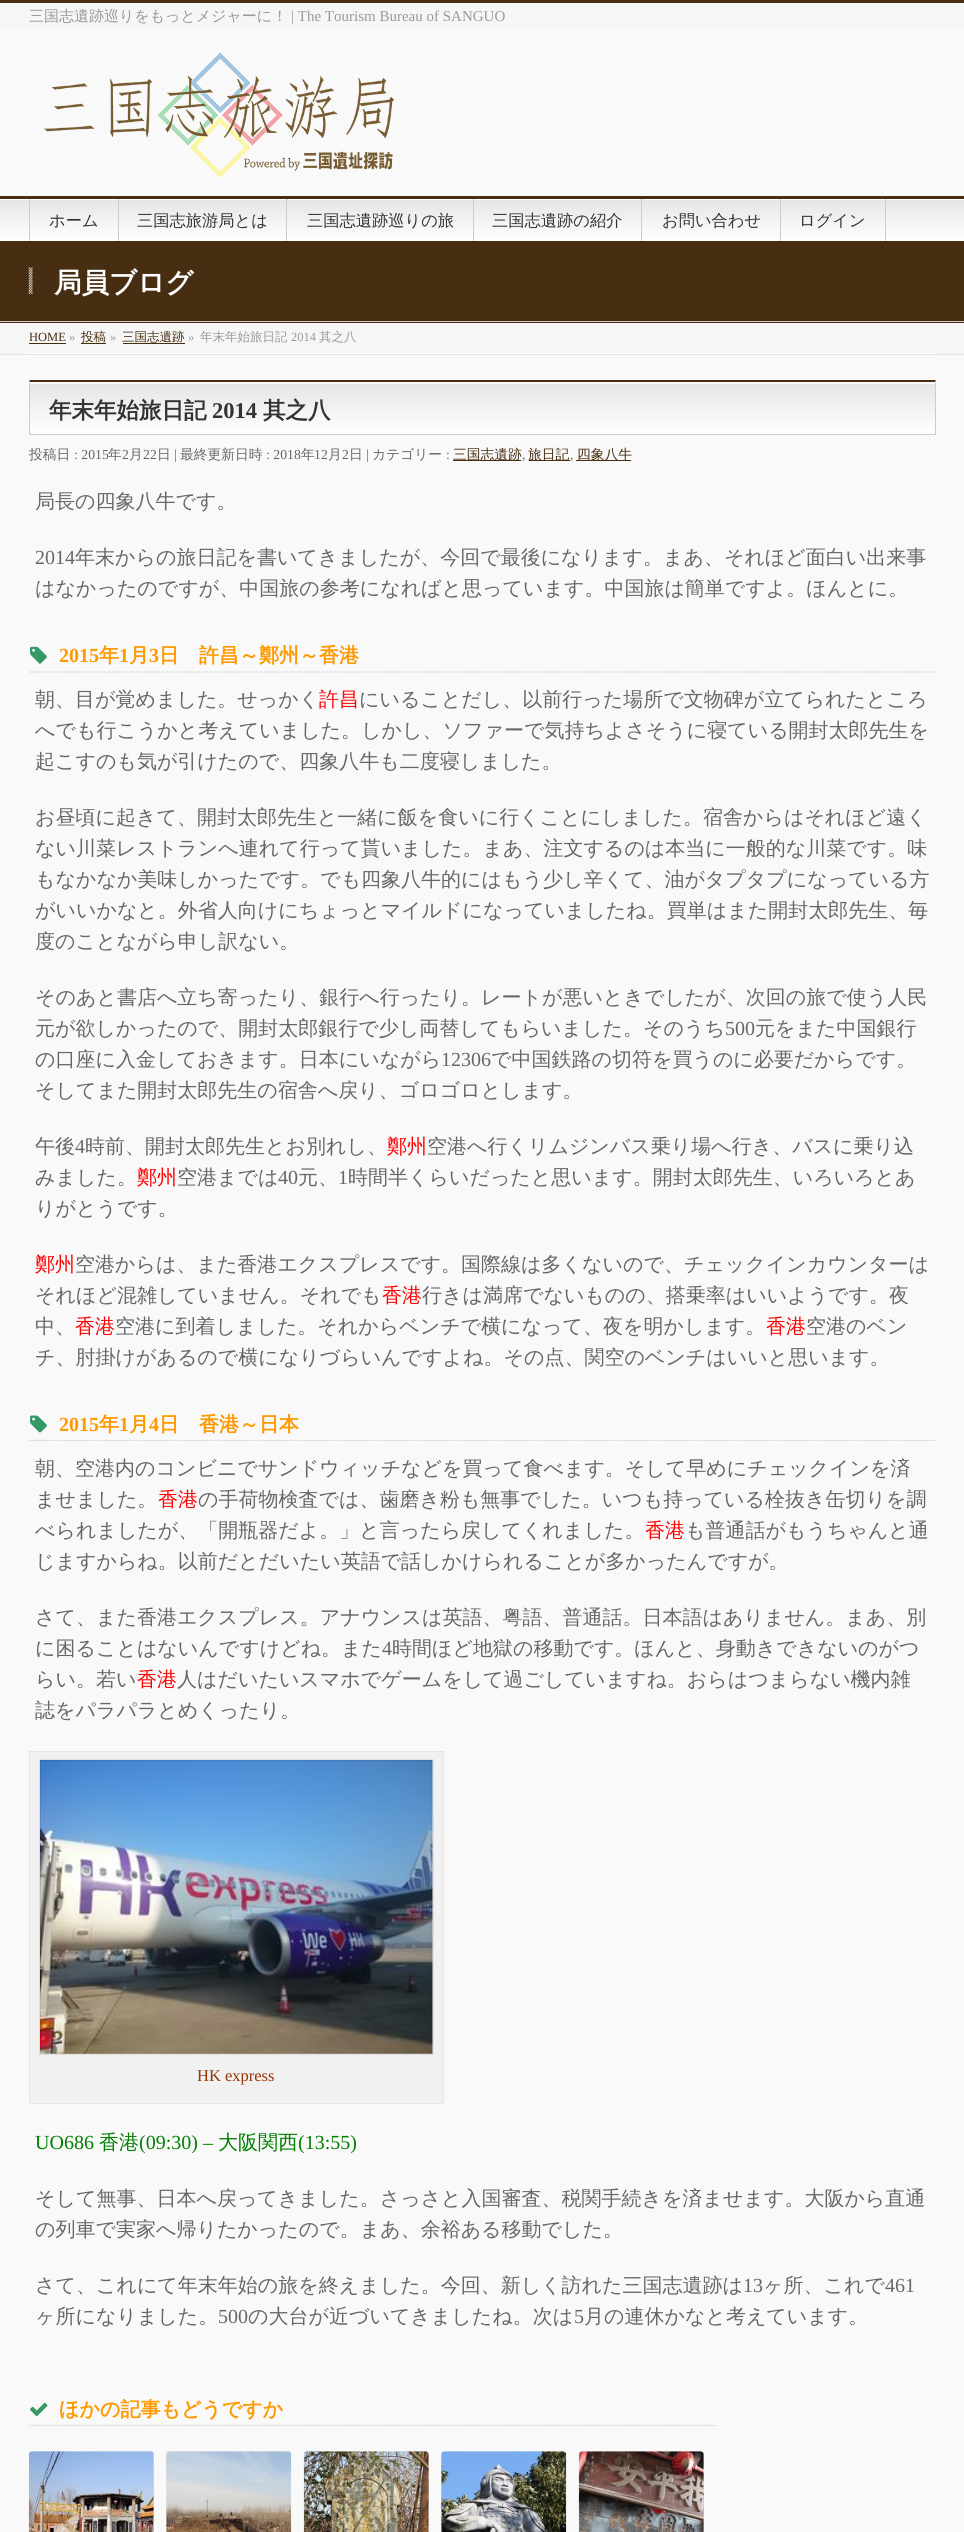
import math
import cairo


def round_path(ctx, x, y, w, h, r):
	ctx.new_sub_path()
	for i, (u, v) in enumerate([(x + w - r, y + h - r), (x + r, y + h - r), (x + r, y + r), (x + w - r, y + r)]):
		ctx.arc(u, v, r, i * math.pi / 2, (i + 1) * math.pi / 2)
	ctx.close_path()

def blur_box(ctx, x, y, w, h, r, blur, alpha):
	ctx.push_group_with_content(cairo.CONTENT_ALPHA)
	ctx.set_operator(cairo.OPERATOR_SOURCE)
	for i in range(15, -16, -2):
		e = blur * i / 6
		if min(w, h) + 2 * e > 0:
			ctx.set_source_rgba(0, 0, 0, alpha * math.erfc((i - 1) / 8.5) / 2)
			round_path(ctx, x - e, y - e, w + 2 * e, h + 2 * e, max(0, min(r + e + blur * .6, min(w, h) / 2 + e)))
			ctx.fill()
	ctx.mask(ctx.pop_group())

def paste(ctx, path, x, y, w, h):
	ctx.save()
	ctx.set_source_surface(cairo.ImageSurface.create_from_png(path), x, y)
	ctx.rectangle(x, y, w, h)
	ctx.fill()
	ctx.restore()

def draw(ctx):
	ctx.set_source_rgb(0.976, 0.976, 0.976)
	ctx.paint()
	ctx.set_source_rgb(0.961, 0.961, 0.961)
	ctx.rectangle(0, 3, 964, 27)
	ctx.fill()
	ctx.set_source_rgb(0.278, 0.176, 0.067)
	ctx.rectangle(0, 0, 964, 3)
	ctx.fill()
	ctx.select_font_face('WenQuanYi Zen Hei Medium')
	ctx.set_font_size(15)
	ctx.set_source_rgb(0.6, 0.6, 0.6)
	ctx.move_to(29, 21)
	ctx.show_text('三国志遺跡巡りをもっとメジャーに！')
	ctx.select_font_face('Liberation Serif')
	ctx.move_to(291, 21)
	ctx.show_text('| The Tourism Bureau of SANGUO')
	paste(ctx, 'media/1.png', 44, 52, 351, 126)
	gradient = cairo.LinearGradient(483, 199, 483, 241)
	gradient.add_color_stop_rgba(0, 0.898, 0.898, 0.898, 1)
	gradient.add_color_stop_rgba(1, 1, 1, 1, 1)
	ctx.set_source(gradient)
	ctx.rectangle(0, 200, 964, 41)
	ctx.fill()
	ctx.set_source_rgb(1, 1, 1)
	ctx.rectangle(0, 199, 964, 1)
	ctx.fill()
	ctx.set_source_rgb(0.278, 0.176, 0.067)
	ctx.rectangle(0, 196, 964, 3)
	ctx.fill()
	ctx.set_source_rgb(0.8, 0.8, 0.8)
	ctx.rectangle(29, 199, 1, 42)
	ctx.rectangle(118, 199, 1, 42)
	ctx.fill()
	ctx.select_font_face('WenQuanYi Zen Hei Medium')
	ctx.set_font_size(16.25)
	ctx.set_source_rgb(0.2, 0.2, 0.2)
	ctx.move_to(49, 226)
	ctx.show_text('ホーム')
	gradient = cairo.LinearGradient(119, 199, 119, 241)
	gradient.add_color_stop_rgba(0, 0.898, 0.898, 0.898, 1)
	gradient.add_color_stop_rgba(1, 1, 1, 1, 1)
	ctx.set_source(gradient)
	ctx.rectangle(119, 199, 169, 1)
	ctx.fill()
	ctx.set_source_rgb(1, 1, 1)
	ctx.rectangle(119, 199, 167, 1)
	ctx.fill()
	ctx.set_source_rgb(0.8, 0.8, 0.8)
	ctx.rectangle(286, 199, 1, 42)
	ctx.fill()
	ctx.set_source_rgb(0.2, 0.2, 0.2)
	ctx.move_to(137, 226)
	ctx.show_text('三国志旅游局とは')
	ctx.set_source_rgb(0.8, 0.8, 0.8)
	ctx.rectangle(473, 199, 1, 42)
	ctx.fill()
	ctx.set_source_rgb(0.2, 0.2, 0.2)
	ctx.move_to(307, 226)
	ctx.show_text('三国志遺跡巡りの旅')
	gradient = cairo.LinearGradient(474, 199, 474, 241)
	gradient.add_color_stop_rgba(0, 0.898, 0.898, 0.898, 1)
	gradient.add_color_stop_rgba(1, 1, 1, 1, 1)
	ctx.set_source(gradient)
	ctx.rectangle(474, 199, 169, 1)
	ctx.fill()
	ctx.set_source_rgb(1, 1, 1)
	ctx.rectangle(474, 199, 167, 1)
	ctx.fill()
	ctx.set_source_rgb(0.8, 0.8, 0.8)
	ctx.rectangle(641, 199, 1, 42)
	ctx.fill()
	ctx.set_source_rgb(0.2, 0.2, 0.2)
	ctx.move_to(492, 226)
	ctx.show_text('三国志遺跡の紹介')
	ctx.set_source_rgb(0.8, 0.8, 0.8)
	ctx.rectangle(780, 199, 1, 42)
	ctx.fill()
	ctx.set_source_rgb(0.2, 0.2, 0.2)
	ctx.move_to(662, 226)
	ctx.show_text('お問い合わせ')
	ctx.set_source_rgb(0.8, 0.8, 0.8)
	ctx.rectangle(885, 199, 1, 42)
	ctx.fill()
	ctx.set_source_rgb(0.2, 0.2, 0.2)
	ctx.move_to(799, 226)
	ctx.show_text('ログイン')
	ctx.set_source_rgb(0.278, 0.176, 0.067)
	ctx.rectangle(0, 241, 964, 82)
	ctx.fill()
	ctx.set_source_rgb(0.8, 0.8, 0.8)
	ctx.rectangle(0, 321, 964, 1)
	ctx.fill()
	paste(ctx, 'media/2.png', 28, 267, 5, 27)
	ctx.select_font_face('WenQuanYi Zen Hei', cairo.FONT_SLANT_NORMAL, cairo.FONT_WEIGHT_BOLD)
	ctx.set_font_size(27.5)
	ctx.set_source_rgb(1, 1, 1)
	ctx.move_to(54, 292)
	ctx.show_text('局員ブログ')
	ctx.set_source_rgb(0.961, 0.961, 0.961)
	ctx.rectangle(0, 323, 964, 31)
	ctx.fill()
	ctx.set_source_rgb(0.898, 0.898, 0.898)
	ctx.rectangle(0, 354, 964, 1)
	ctx.fill()
	ctx.set_source_rgb(1, 1, 1)
	ctx.rectangle(29, 353, 907, 1)
	ctx.fill()
	ctx.select_font_face('Liberation Serif')
	ctx.set_font_size(12.5)
	ctx.set_source_rgb(0.278, 0.176, 0.067)
	ctx.move_to(29, 341)
	ctx.show_text('HOME')
	ctx.rectangle(29, 343, 37, 1)
	ctx.fill()
	ctx.set_source_rgb(0.6, 0.6, 0.6)
	ctx.move_to(69, 341)
	ctx.show_text('»')
	ctx.select_font_face('WenQuanYi Zen Hei Medium')
	ctx.set_source_rgb(0.278, 0.176, 0.067)
	ctx.move_to(81, 341)
	ctx.show_text('投稿')
	ctx.rectangle(81, 343, 25, 1)
	ctx.fill()
	ctx.select_font_face('Liberation Serif')
	ctx.set_source_rgb(0.6, 0.6, 0.6)
	ctx.move_to(110, 341)
	ctx.show_text('»')
	ctx.select_font_face('WenQuanYi Zen Hei Medium')
	ctx.set_source_rgb(0.278, 0.176, 0.067)
	ctx.move_to(122, 341)
	ctx.show_text('三国志遺跡')
	ctx.rectangle(123, 343, 62, 1)
	ctx.fill()
	ctx.select_font_face('Liberation Serif')
	ctx.set_source_rgb(0.6, 0.6, 0.6)
	ctx.move_to(188, 341)
	ctx.show_text('»')
	ctx.select_font_face('WenQuanYi Zen Hei Medium')
	ctx.move_to(200, 341)
	ctx.show_text('年末年始旅日記')
	ctx.select_font_face('Liberation Serif')
	ctx.move_to(291, 341)
	ctx.show_text('2014')
	ctx.select_font_face('WenQuanYi Zen Hei Medium')
	ctx.move_to(319, 341)
	ctx.show_text('其之八')
	gradient = cairo.LinearGradient(30, 383, 30, 434)
	gradient.add_color_stop_rgba(0, 0.898, 0.898, 0.898, 1)
	gradient.add_color_stop_rgba(1, 1, 1, 1, 1)
	ctx.set_source(gradient)
	ctx.rectangle(30, 384, 905, 50)
	ctx.fill()
	ctx.set_source_rgb(1, 1, 1)
	ctx.rectangle(30, 383, 905, 1)
	ctx.fill()
	ctx.set_source_rgb(0.278, 0.176, 0.067)
	ctx.new_path()
	ctx.move_to(29, 380)
	ctx.line_to(936, 380)
	ctx.line_to(935, 382)
	ctx.line_to(30, 382)
	ctx.close_path()
	ctx.fill()
	ctx.set_source_rgb(0.8, 0.8, 0.8)
	ctx.new_path()
	ctx.move_to(936, 380)
	ctx.line_to(936, 435)
	ctx.line_to(935, 434)
	ctx.line_to(935, 382)
	ctx.close_path()
	ctx.fill()
	ctx.rectangle(29, 434, 907, 1)
	ctx.fill()
	ctx.new_path()
	ctx.move_to(29, 435)
	ctx.line_to(29, 380)
	ctx.line_to(30, 382)
	ctx.line_to(30, 434)
	ctx.close_path()
	ctx.fill()
	ctx.select_font_face('WenQuanYi Zen Hei', cairo.FONT_SLANT_NORMAL, cairo.FONT_WEIGHT_BOLD)
	ctx.set_font_size(22.5)
	ctx.set_source_rgb(0.2, 0.2, 0.2)
	ctx.move_to(49, 418)
	ctx.show_text('年末年始旅日記')
	ctx.select_font_face('Liberation Serif', cairo.FONT_SLANT_NORMAL, cairo.FONT_WEIGHT_BOLD)
	ctx.move_to(212, 418)
	ctx.show_text('2014')
	ctx.select_font_face('WenQuanYi Zen Hei', cairo.FONT_SLANT_NORMAL, cairo.FONT_WEIGHT_BOLD)
	ctx.move_to(263, 418)
	ctx.show_text('其之八')
	ctx.select_font_face('WenQuanYi Zen Hei Medium')
	ctx.set_font_size(13.75)
	ctx.set_source_rgb(0.4, 0.4, 0.4)
	ctx.move_to(29, 459)
	ctx.show_text('投稿日')
	ctx.select_font_face('Liberation Serif')
	ctx.move_to(74, 459)
	ctx.show_text(': 2015')
	ctx.select_font_face('WenQuanYi Zen Hei Medium')
	ctx.move_to(108, 459)
	ctx.show_text('年')
	ctx.select_font_face('Liberation Serif')
	ctx.move_to(122, 459)
	ctx.show_text('2')
	ctx.select_font_face('WenQuanYi Zen Hei Medium')
	ctx.move_to(129, 459)
	ctx.show_text('月')
	ctx.select_font_face('Liberation Serif')
	ctx.move_to(143, 459)
	ctx.show_text('22')
	ctx.select_font_face('WenQuanYi Zen Hei Medium')
	ctx.move_to(157, 459)
	ctx.show_text('日')
	ctx.select_font_face('Liberation Serif')
	ctx.move_to(174, 459)
	ctx.show_text('|')
	ctx.select_font_face('WenQuanYi Zen Hei Medium')
	ctx.move_to(180, 459)
	ctx.show_text('最終更新日時')
	ctx.select_font_face('Liberation Serif')
	ctx.move_to(266, 459)
	ctx.show_text(': 2018')
	ctx.select_font_face('WenQuanYi Zen Hei Medium')
	ctx.move_to(301, 459)
	ctx.show_text('年')
	ctx.select_font_face('Liberation Serif')
	ctx.move_to(314, 459)
	ctx.show_text('12')
	ctx.select_font_face('WenQuanYi Zen Hei Medium')
	ctx.move_to(328, 459)
	ctx.show_text('月')
	ctx.select_font_face('Liberation Serif')
	ctx.move_to(342, 459)
	ctx.show_text('2')
	ctx.select_font_face('WenQuanYi Zen Hei Medium')
	ctx.move_to(349, 459)
	ctx.show_text('日')
	ctx.select_font_face('Liberation Serif')
	ctx.move_to(366, 459)
	ctx.show_text('|')
	ctx.select_font_face('WenQuanYi Zen Hei Medium')
	ctx.move_to(372, 459)
	ctx.show_text('カテゴリー')
	ctx.select_font_face('Liberation Serif')
	ctx.move_to(446, 459)
	ctx.show_text(':')
	ctx.set_source_rgb(0.278, 0.176, 0.067)
	ctx.rectangle(453, 460, 68, 1)
	ctx.fill()
	ctx.select_font_face('WenQuanYi Zen Hei Medium')
	ctx.move_to(453, 459)
	ctx.show_text('三国志遺跡')
	ctx.select_font_face('Liberation Serif')
	ctx.set_source_rgb(0.4, 0.4, 0.4)
	ctx.move_to(522, 459)
	ctx.show_text(',')
	ctx.set_source_rgb(0.278, 0.176, 0.067)
	ctx.rectangle(529, 460, 41, 1)
	ctx.fill()
	ctx.select_font_face('WenQuanYi Zen Hei Medium')
	ctx.move_to(528, 459)
	ctx.show_text('旅日記')
	ctx.select_font_face('Liberation Serif')
	ctx.set_source_rgb(0.4, 0.4, 0.4)
	ctx.move_to(570, 459)
	ctx.show_text(',')
	ctx.set_source_rgb(0.278, 0.176, 0.067)
	ctx.rectangle(576, 460, 55, 1)
	ctx.fill()
	ctx.select_font_face('WenQuanYi Zen Hei Medium')
	ctx.move_to(577, 459)
	ctx.show_text('四象八牛')
	ctx.set_font_size(20)
	ctx.set_source_rgb(0.4, 0.4, 0.4)
	ctx.move_to(35, 508)
	ctx.show_text('局長の四象八牛です。')
	ctx.select_font_face('Liberation Serif')
	ctx.move_to(35, 564)
	ctx.show_text('2014')
	ctx.select_font_face('WenQuanYi Zen Hei Medium')
	ctx.move_to(75, 564)
	ctx.show_text('年末からの旅日記を書いてきましたが、今回で最後になります。まあ、それほど面白い出来事')
	ctx.move_to(35, 595)
	ctx.show_text('はなかったのですが、中国旅の参考になればと思っています。中国旅は簡単ですよ。ほんとに。')
	ctx.new_path()
	ctx.move_to(29, 672)
	ctx.line_to(936, 672)
	ctx.set_source_rgb(0.8, 0.8, 0.8)
	ctx.set_line_width(1.2)
	ctx.set_dash([1.25, 1.25])
	ctx.stroke()
	paste(ctx, 'media/3.png', 30, 646, 17, 18)
	ctx.select_font_face('Liberation Serif', cairo.FONT_SLANT_NORMAL, cairo.FONT_WEIGHT_BOLD)
	ctx.set_source_rgb(1, 0.6, 0)
	ctx.move_to(59, 662)
	ctx.show_text('2015')
	ctx.select_font_face('WenQuanYi Zen Hei', cairo.FONT_SLANT_NORMAL, cairo.FONT_WEIGHT_BOLD)
	ctx.move_to(99, 662)
	ctx.show_text('年')
	ctx.select_font_face('Liberation Serif', cairo.FONT_SLANT_NORMAL, cairo.FONT_WEIGHT_BOLD)
	ctx.move_to(119, 662)
	ctx.show_text('1')
	ctx.select_font_face('WenQuanYi Zen Hei', cairo.FONT_SLANT_NORMAL, cairo.FONT_WEIGHT_BOLD)
	ctx.move_to(129, 662)
	ctx.show_text('月')
	ctx.select_font_face('Liberation Serif', cairo.FONT_SLANT_NORMAL, cairo.FONT_WEIGHT_BOLD)
	ctx.move_to(149, 662)
	ctx.show_text('3')
	ctx.select_font_face('WenQuanYi Zen Hei', cairo.FONT_SLANT_NORMAL, cairo.FONT_WEIGHT_BOLD)
	ctx.move_to(159, 662)
	ctx.show_text('日　許昌～鄭州～香港')
	ctx.select_font_face('WenQuanYi Zen Hei Medium')
	ctx.set_source_rgb(0.4, 0.4, 0.4)
	ctx.move_to(35, 706)
	ctx.show_text('朝、目が覚めました。せっかく')
	ctx.set_source_rgb(1, 0, 0)
	ctx.move_to(319, 706)
	ctx.show_text('許昌')
	ctx.set_source_rgb(0.4, 0.4, 0.4)
	for x, y, s in [
		(359, 706, 'にいることだし、以前行った場所で文物碑が立てられたところ'),
		(35, 737, 'へでも行こうかと考えていました。しかし、ソファーで気持ちよさそうに寝ている開封太郎先生を'),
		(35, 768, '起こすのも気が引けたので、四象八牛も二度寝しました。'),
		(35, 824, 'お昼頃に起きて、開封太郎先生と一緒に飯を食いに行くことにしました。宿舎からはそれほど遠く'),
		(35, 855, 'ない川菜レストランへ連れて行って貰いました。まあ、注文するのは本当に一般的な川菜です。味'),
		(35, 886, 'もなかなか美味しかったです。でも四象八牛的にはもう少し辛くて、油がタプタプになっている方'),
		(35, 917, 'がいいかなと。外省人向けにちょっとマイルドになっていましたね。買単はまた開封太郎先生、毎'),
		(35, 948, '度のことながら申し訳ない。'),
		(35, 1004, 'そのあと書店へ立ち寄ったり、銀行へ行ったり。レートが悪いときでしたが、次回の旅で使う人民'),
		(35, 1035, '元が欲しかったので、開封太郎銀行で少し両替してもらいました。そのうち'),
	]:
		ctx.move_to(x, y)
		ctx.show_text(s)
	ctx.select_font_face('Liberation Serif')
	ctx.move_to(725, 1035)
	ctx.show_text('500')
	ctx.select_font_face('WenQuanYi Zen Hei Medium')
	ctx.move_to(755, 1035)
	ctx.show_text('元をまた中国銀行')
	ctx.move_to(35, 1066)
	ctx.show_text('の口座に入金しておきます。日本にいながら')
	ctx.select_font_face('Liberation Serif')
	ctx.move_to(441, 1066)
	ctx.show_text('12306')
	ctx.select_font_face('WenQuanYi Zen Hei Medium')
	for x, y, s in [
		(491, 1066, 'で中国鉄路の切符を買うのに必要だからです。'),
		(35, 1097, 'そしてまた開封太郎先生の宿舎へ戻り、ゴロゴロとします。'),
		(35, 1153, '午後'),
	]:
		ctx.move_to(x, y)
		ctx.show_text(s)
	ctx.select_font_face('Liberation Serif')
	ctx.move_to(75, 1153)
	ctx.show_text('4')
	ctx.select_font_face('WenQuanYi Zen Hei Medium')
	ctx.move_to(85, 1153)
	ctx.show_text('時前、開封太郎先生とお別れし、')
	ctx.set_source_rgb(1, 0, 0)
	ctx.move_to(387, 1153)
	ctx.show_text('鄭州')
	ctx.set_source_rgb(0.4, 0.4, 0.4)
	ctx.move_to(427, 1153)
	ctx.show_text('空港へ行くリムジンバス乗り場へ行き、バスに乗り込')
	ctx.move_to(35, 1184)
	ctx.show_text('みました。')
	ctx.set_source_rgb(1, 0, 0)
	ctx.move_to(137, 1184)
	ctx.show_text('鄭州')
	ctx.set_source_rgb(0.4, 0.4, 0.4)
	ctx.move_to(177, 1184)
	ctx.show_text('空港までは')
	ctx.select_font_face('Liberation Serif')
	ctx.move_to(278, 1184)
	ctx.show_text('40')
	ctx.select_font_face('WenQuanYi Zen Hei Medium')
	ctx.move_to(298, 1184)
	ctx.show_text('元、')
	ctx.select_font_face('Liberation Serif')
	ctx.move_to(338, 1184)
	ctx.show_text('1')
	ctx.select_font_face('WenQuanYi Zen Hei Medium')
	ctx.move_to(348, 1184)
	ctx.show_text('時間半くらいだったと思います。開封太郎先生、いろいろとあ')
	ctx.move_to(35, 1215)
	ctx.show_text('りがとうです。')
	ctx.set_source_rgb(1, 0, 0)
	ctx.move_to(35, 1271)
	ctx.show_text('鄭州')
	ctx.set_source_rgb(0.4, 0.4, 0.4)
	ctx.move_to(75, 1271)
	ctx.show_text('空港からは、また香港エクスプレスです。国際線は多くないので、チェックインカウンターは')
	ctx.move_to(35, 1302)
	ctx.show_text('それほど混雑していません。それでも')
	ctx.set_source_rgb(1, 0, 0)
	ctx.move_to(382, 1302)
	ctx.show_text('香港')
	ctx.set_source_rgb(0.4, 0.4, 0.4)
	ctx.move_to(422, 1302)
	ctx.show_text('行きは満席でないものの、搭乗率はいいようです。夜')
	ctx.move_to(35, 1333)
	ctx.show_text('中、')
	ctx.set_source_rgb(1, 0, 0)
	ctx.move_to(75, 1333)
	ctx.show_text('香港')
	ctx.set_source_rgb(0.4, 0.4, 0.4)
	ctx.move_to(115, 1333)
	ctx.show_text('空港に到着しました。それからベンチで横になって、夜を明かします。')
	ctx.set_source_rgb(1, 0, 0)
	ctx.move_to(766, 1333)
	ctx.show_text('香港')
	ctx.set_source_rgb(0.4, 0.4, 0.4)
	ctx.move_to(806, 1333)
	ctx.show_text('空港のベン')
	ctx.move_to(35, 1364)
	ctx.show_text('チ、肘掛けがあるので横になりづらいんですよね。その点、関空のベンチはいいと思います。')
	ctx.new_path()
	ctx.move_to(29, 1440.5)
	ctx.line_to(936, 1440.5)
	ctx.set_source_rgb(0.8, 0.8, 0.8)
	ctx.stroke()
	paste(ctx, 'media/4.png', 30, 1415, 17, 18)
	ctx.select_font_face('Liberation Serif', cairo.FONT_SLANT_NORMAL, cairo.FONT_WEIGHT_BOLD)
	ctx.set_source_rgb(1, 0.6, 0)
	ctx.move_to(59, 1431)
	ctx.show_text('2015')
	ctx.select_font_face('WenQuanYi Zen Hei', cairo.FONT_SLANT_NORMAL, cairo.FONT_WEIGHT_BOLD)
	ctx.move_to(99, 1431)
	ctx.show_text('年')
	ctx.select_font_face('Liberation Serif', cairo.FONT_SLANT_NORMAL, cairo.FONT_WEIGHT_BOLD)
	ctx.move_to(119, 1431)
	ctx.show_text('1')
	ctx.select_font_face('WenQuanYi Zen Hei', cairo.FONT_SLANT_NORMAL, cairo.FONT_WEIGHT_BOLD)
	ctx.move_to(129, 1431)
	ctx.show_text('月')
	ctx.select_font_face('Liberation Serif', cairo.FONT_SLANT_NORMAL, cairo.FONT_WEIGHT_BOLD)
	ctx.move_to(149, 1431)
	ctx.show_text('4')
	ctx.select_font_face('WenQuanYi Zen Hei', cairo.FONT_SLANT_NORMAL, cairo.FONT_WEIGHT_BOLD)
	ctx.move_to(159, 1431)
	ctx.show_text('日　香港～日本')
	ctx.select_font_face('WenQuanYi Zen Hei Medium')
	ctx.set_source_rgb(0.4, 0.4, 0.4)
	ctx.move_to(35, 1475)
	ctx.show_text('朝、空港内のコンビニでサンドウィッチなどを買って食べます。そして早めにチェックインを済')
	ctx.move_to(35, 1506)
	ctx.show_text('ませました。')
	ctx.set_source_rgb(1, 0, 0)
	ctx.move_to(158, 1506)
	ctx.show_text('香港')
	ctx.set_source_rgb(0.4, 0.4, 0.4)
	ctx.move_to(198, 1506)
	ctx.show_text('の手荷物検査では、歯磨き粉も無事でした。いつも持っている栓抜き缶切りを調')
	ctx.move_to(35, 1537)
	ctx.show_text('べられましたが、「開瓶器だよ。」と言ったら戻してくれました。')
	ctx.set_source_rgb(1, 0, 0)
	ctx.move_to(645, 1537)
	ctx.show_text('香港')
	ctx.set_source_rgb(0.4, 0.4, 0.4)
	for x, y, s in [
		(685, 1537, 'も普通話がもうちゃんと通'),
		(35, 1568, 'じますからね。以前だとだいたい英語で話しかけられることが多かったんですが。'),
		(35, 1624, 'さて、また香港エクスプレス。アナウンスは英語、粤語、普通話。日本語はありません。まあ、別'),
		(35, 1655, 'に困ることはないんですけどね。また'),
	]:
		ctx.move_to(x, y)
		ctx.show_text(s)
	ctx.select_font_face('Liberation Serif')
	ctx.move_to(382, 1655)
	ctx.show_text('4')
	ctx.select_font_face('WenQuanYi Zen Hei Medium')
	ctx.move_to(392, 1655)
	ctx.show_text('時間ほど地獄の移動です。ほんと、身動きできないのがつ')
	ctx.move_to(35, 1686)
	ctx.show_text('らい。若い')
	ctx.set_source_rgb(1, 0, 0)
	ctx.move_to(137, 1686)
	ctx.show_text('香港')
	ctx.set_source_rgb(0.4, 0.4, 0.4)
	ctx.move_to(177, 1686)
	ctx.show_text('人はだいたいスマホでゲームをして過ごしていますね。おらはつまらない機内雑')
	ctx.move_to(35, 1717)
	ctx.show_text('誌をパラパラとめくったり。')
	ctx.set_source_rgb(0.945, 0.945, 0.945)
	ctx.rectangle(29.5, 1751.5, 414, 352)
	ctx.fill_preserve()
	ctx.set_source_rgb(0.898, 0.898, 0.898)
	ctx.set_line_width(1)
	ctx.set_dash([])
	ctx.stroke()
	ctx.rectangle(39.5, 1759.5, 394, 295)
	ctx.set_source_rgb(0.878, 0.878, 0.878)
	ctx.stroke()
	paste(ctx, 'media/5.png', 40, 1760, 393, 294)
	ctx.select_font_face('Liberation Serif')
	ctx.set_font_size(16.5)
	ctx.set_source_rgb(0.6, 0.2, 0)
	ctx.move_to(197, 2081)
	ctx.show_text('HK express')
	ctx.set_font_size(20)
	ctx.set_source_rgb(0, 0.502, 0)
	ctx.move_to(35, 2149)
	ctx.show_text('UO686')
	ctx.select_font_face('WenQuanYi Zen Hei Medium')
	ctx.move_to(99, 2149)
	ctx.show_text('香港')
	ctx.select_font_face('Liberation Serif')
	ctx.move_to(139, 2149)
	ctx.show_text('(09:30) –')
	ctx.select_font_face('WenQuanYi Zen Hei Medium')
	ctx.move_to(218, 2149)
	ctx.show_text('大阪関西')
	ctx.select_font_face('Liberation Serif')
	ctx.move_to(298, 2149)
	ctx.show_text('(13:55)')
	ctx.select_font_face('WenQuanYi Zen Hei Medium')
	ctx.set_source_rgb(0.4, 0.4, 0.4)
	for x, y, s in [
		(35, 2205, 'そして無事、日本へ戻ってきました。さっさと入国審査、税関手続きを済ませます。大阪から直通'),
		(35, 2236, 'の列車で実家へ帰りたかったので。まあ、余裕ある移動でした。'),
		(35, 2292, 'さて、これにて年末年始の旅を終えました。今回、新しく訪れた三国志遺跡は'),
	]:
		ctx.move_to(x, y)
		ctx.show_text(s)
	ctx.select_font_face('Liberation Serif')
	ctx.move_to(743, 2292)
	ctx.show_text('13')
	ctx.select_font_face('WenQuanYi Zen Hei Medium')
	ctx.move_to(763, 2292)
	ctx.show_text('ヶ所、これで')
	ctx.select_font_face('Liberation Serif')
	ctx.move_to(885, 2292)
	ctx.show_text('461')
	ctx.select_font_face('WenQuanYi Zen Hei Medium')
	ctx.move_to(35, 2323)
	ctx.show_text('ヶ所になりました。')
	ctx.select_font_face('Liberation Serif')
	ctx.move_to(218, 2323)
	ctx.show_text('500')
	ctx.select_font_face('WenQuanYi Zen Hei Medium')
	ctx.move_to(248, 2323)
	ctx.show_text('の大台が近づいてきましたね。次は')
	ctx.select_font_face('Liberation Serif')
	ctx.move_to(574, 2323)
	ctx.show_text('5')
	ctx.select_font_face('WenQuanYi Zen Hei Medium')
	ctx.move_to(584, 2323)
	ctx.show_text('月の連休かなと考えています。')
	ctx.new_path()
	ctx.move_to(29, 2425.5)
	ctx.line_to(716, 2425.5)
	ctx.set_source_rgb(0.8, 0.8, 0.8)
	ctx.set_line_width(1.2)
	ctx.set_dash([1.25, 1.25])
	ctx.stroke()
	paste(ctx, 'media/6.png', 30, 2402, 18, 15)
	ctx.select_font_face('WenQuanYi Zen Hei', cairo.FONT_SLANT_NORMAL, cairo.FONT_WEIGHT_BOLD)
	ctx.set_source_rgb(1, 0.6, 0)
	ctx.move_to(59, 2416)
	ctx.show_text('ほかの記事もどうですか')
	ctx.save()
	ctx.rectangle(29, 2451, 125, 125)
	ctx.clip()
	ctx.set_source_rgb(0, 0, 0)
	blur_box(ctx, 29, 2453, 125, 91, 4, 2.5, 0.2)
	ctx.restore()
	paste(ctx, 'media/7.png', 28, 2451, 126, 81)
	ctx.save()
	ctx.rectangle(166, 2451, 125, 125)
	ctx.clip()
	ctx.set_source_rgb(0, 0, 0)
	blur_box(ctx, 166, 2453, 125, 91, 4, 2.5, 0.2)
	ctx.restore()
	paste(ctx, 'media/8.png', 166, 2451, 126, 81)
	ctx.save()
	ctx.rectangle(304, 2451, 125, 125)
	ctx.clip()
	ctx.set_source_rgb(0, 0, 0)
	blur_box(ctx, 304, 2453, 125, 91, 4, 2.5, 0.2)
	ctx.restore()
	paste(ctx, 'media/9.png', 303, 2451, 126, 81)
	ctx.save()
	ctx.rectangle(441, 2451, 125, 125)
	ctx.clip()
	ctx.set_source_rgb(0, 0, 0)
	blur_box(ctx, 441, 2453, 125, 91, 4, 2.5, 0.2)
	ctx.restore()
	paste(ctx, 'media/10.png', 441, 2451, 126, 81)
	ctx.save()
	ctx.rectangle(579, 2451, 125, 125)
	ctx.clip()
	ctx.set_source_rgb(0, 0, 0)
	blur_box(ctx, 579, 2453, 125, 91, 4, 2.5, 0.2)
	ctx.restore()
	paste(ctx, 'media/11.png', 578, 2451, 126, 81)


surface = cairo.ImageSurface(cairo.FORMAT_RGB24, 964, 2532)
ctx = cairo.Context(surface)
options = cairo.FontOptions()
options.set_hint_metrics(cairo.HINT_METRICS_OFF)
options.set_hint_style(cairo.HINT_STYLE_NONE)
ctx.set_font_options(options)
ctx.set_miter_limit(4)
draw(ctx)
surface.write_to_png('image.png')
